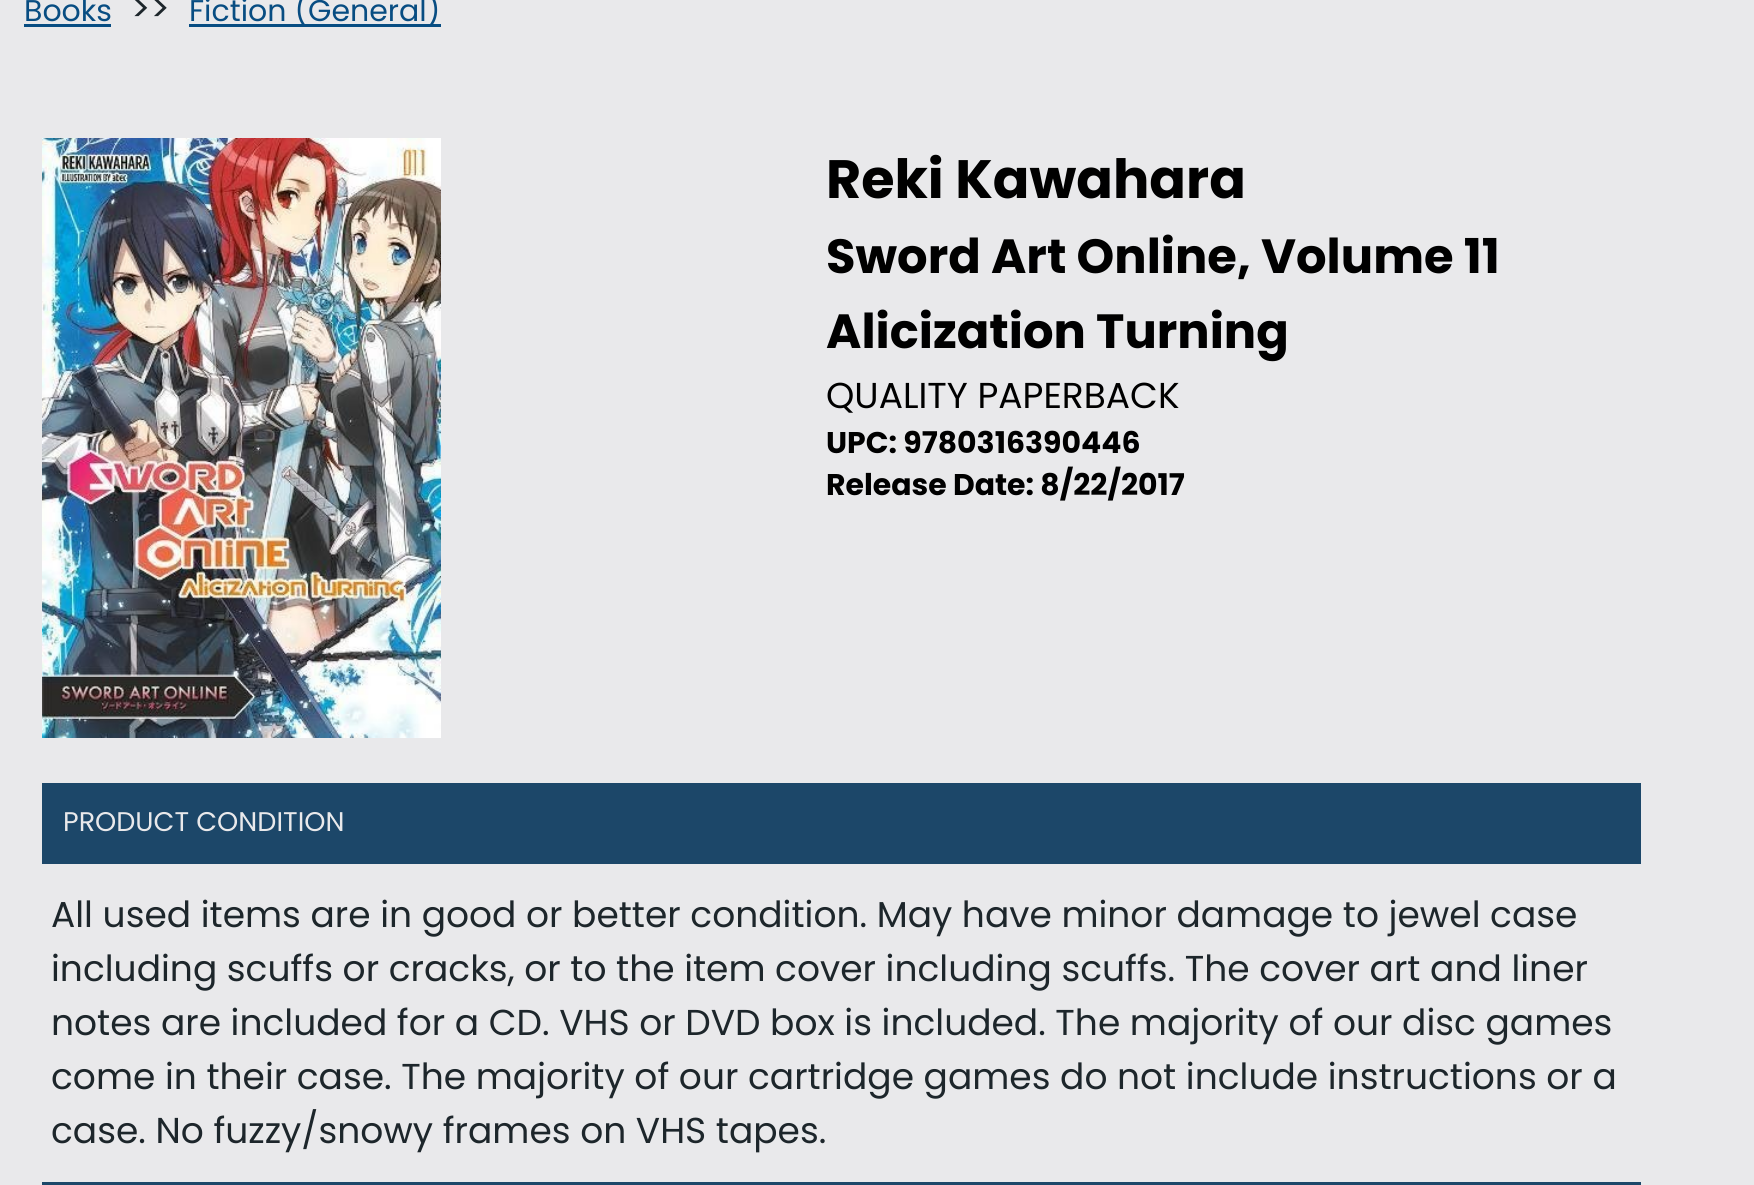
import math
import cairo


def paste(ctx, path, x, y, w, h):
	ctx.save()
	ctx.set_source_surface(cairo.ImageSurface.create_from_png(path), x, y)
	ctx.rectangle(x, y, w, h)
	ctx.fill()
	ctx.restore()

def draw(ctx):
	ctx.set_source_rgb(0.914, 0.914, 0.918)
	ctx.paint()
	ctx.select_font_face('Poppins')
	ctx.set_font_size(30)
	ctx.set_source_rgb(0.035, 0.302, 0.51)
	ctx.move_to(24, 21)
	ctx.show_text('Books')
	ctx.rectangle(24, 24, 87, 3)
	ctx.fill()
	ctx.set_font_size(36)
	ctx.set_source_rgb(0.114, 0.149, 0.169)
	ctx.move_to(131, 21)
	ctx.show_text('>>')
	ctx.set_source_rgb(0.035, 0.302, 0.51)
	ctx.rectangle(189, 24, 252, 3)
	ctx.fill()
	ctx.set_font_size(30)
	ctx.move_to(189, 21)
	ctx.show_text('Fiction (General)')
	paste(ctx, 'media/1.png', 42, 138, 399, 600)
	ctx.select_font_face('Poppins', cairo.FONT_SLANT_NORMAL, cairo.FONT_WEIGHT_BOLD)
	ctx.set_font_size(54)
	ctx.set_source_rgb(0, 0, 0)
	ctx.move_to(826, 198)
	ctx.show_text('Reki Kawahara')
	ctx.set_font_size(48)
	for x, y, s in [
		(826, 273, 'Sword Art Online,'),
		(1261, 273, 'Volume 11'),
		(826, 348, 'Alicization Turning'),
	]:
		ctx.move_to(x, y)
		ctx.show_text(s)
	ctx.select_font_face('Poppins')
	ctx.set_font_size(36)
	ctx.move_to(826, 408)
	ctx.show_text('QUALITY PAPERBACK')
	ctx.select_font_face('Poppins', cairo.FONT_SLANT_NORMAL, cairo.FONT_WEIGHT_BOLD)
	ctx.set_font_size(29.9)
	ctx.move_to(826, 453)
	ctx.show_text('UPC: 9780316390446')
	ctx.move_to(826, 495)
	ctx.show_text('Release Date: 8/22/2017')
	ctx.set_source_rgb(0.11, 0.278, 0.412)
	ctx.rectangle(42, 783, 1599, 81)
	ctx.fill()
	ctx.select_font_face('Poppins')
	ctx.set_font_size(27)
	ctx.set_source_rgb(0.914, 0.914, 0.918)
	ctx.move_to(63, 831)
	ctx.show_text('PRODUCT CONDITION')
	ctx.set_font_size(36)
	ctx.set_source_rgb(0.114, 0.149, 0.169)
	for x, y, s in [
		(51, 927, 'All used items are in good or better condition. May have minor damage to jewel case'),
		(51, 981, 'including scuffs or cracks, or to the item cover including scuffs. The cover art and liner'),
		(51, 1035, 'notes are included for a CD. VHS or DVD box is included. The majority of our disc games'),
		(51, 1089, 'come in their case. The majority of our cartridge games do not include instructions or a'),
		(51, 1143, 'case. No fuzzy/snowy frames on VHS tapes.'),
	]:
		ctx.move_to(x, y)
		ctx.show_text(s)
	ctx.set_source_rgb(0.11, 0.278, 0.412)
	ctx.rectangle(42, 1182, 1599, 3)
	ctx.fill()


surface = cairo.ImageSurface(cairo.FORMAT_RGB24, 1754, 1185)
ctx = cairo.Context(surface)
options = cairo.FontOptions()
options.set_hint_metrics(cairo.HINT_METRICS_OFF)
options.set_hint_style(cairo.HINT_STYLE_NONE)
ctx.set_font_options(options)
ctx.set_miter_limit(4)
draw(ctx)
surface.write_to_png('image.png')
